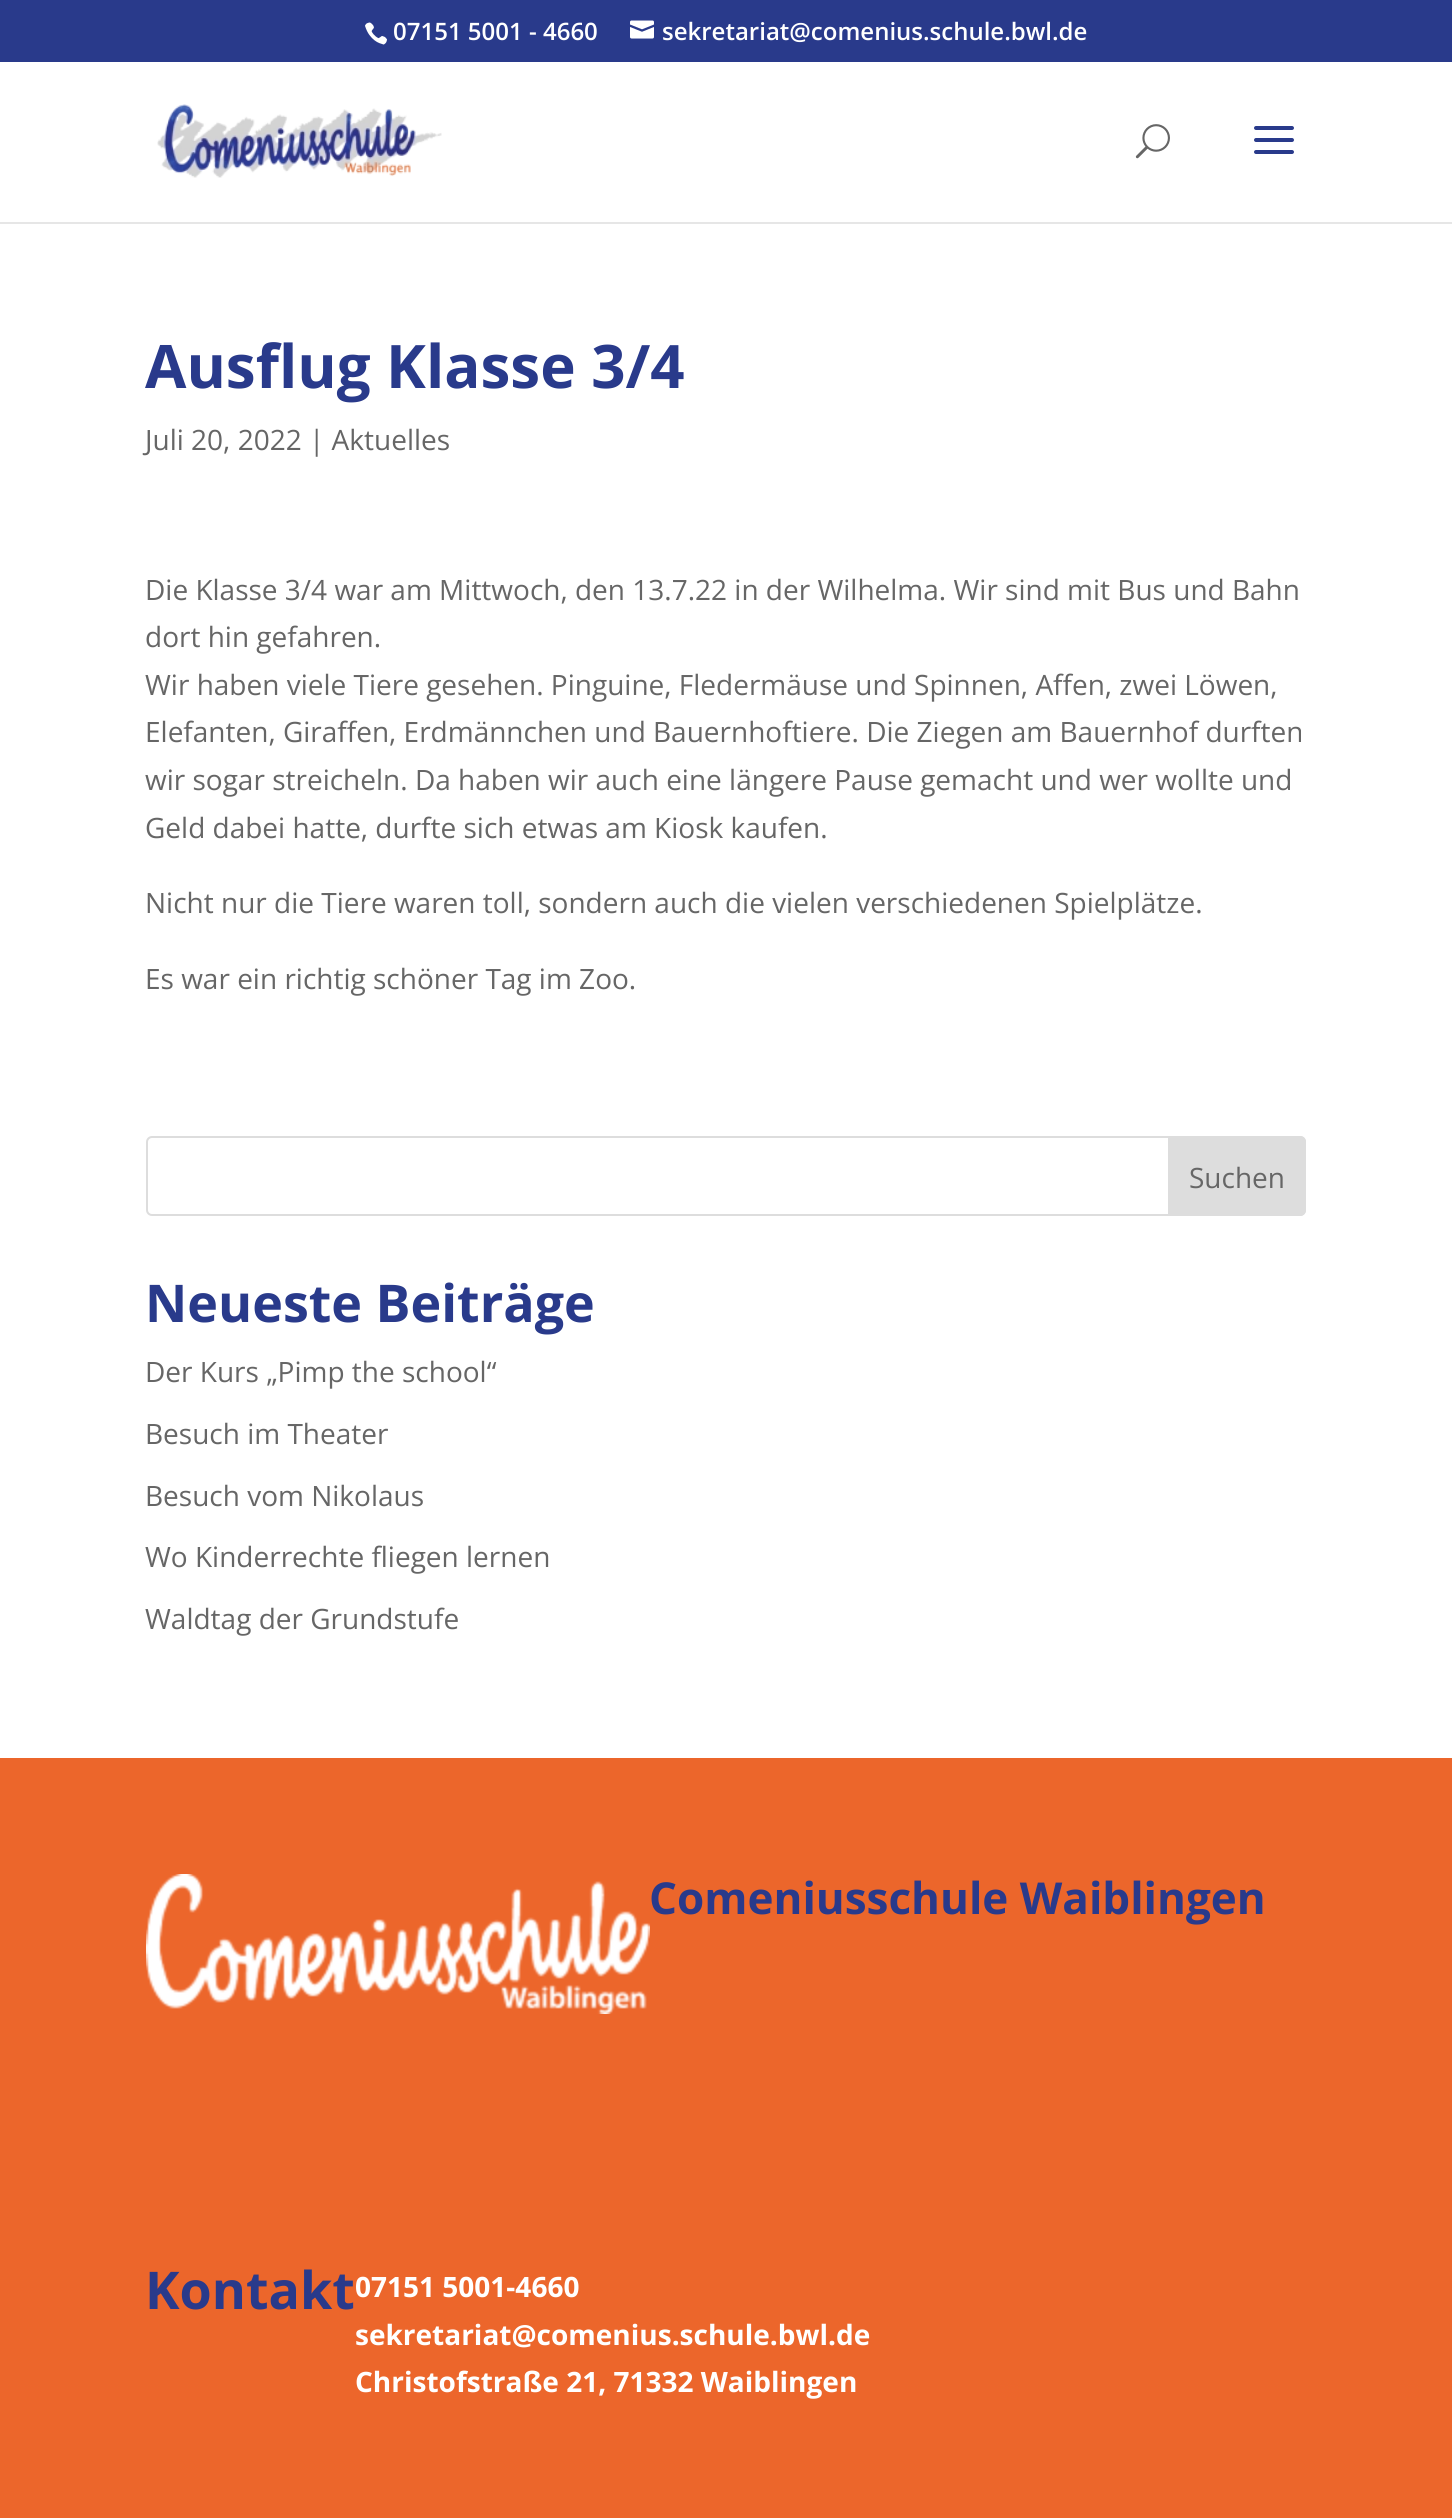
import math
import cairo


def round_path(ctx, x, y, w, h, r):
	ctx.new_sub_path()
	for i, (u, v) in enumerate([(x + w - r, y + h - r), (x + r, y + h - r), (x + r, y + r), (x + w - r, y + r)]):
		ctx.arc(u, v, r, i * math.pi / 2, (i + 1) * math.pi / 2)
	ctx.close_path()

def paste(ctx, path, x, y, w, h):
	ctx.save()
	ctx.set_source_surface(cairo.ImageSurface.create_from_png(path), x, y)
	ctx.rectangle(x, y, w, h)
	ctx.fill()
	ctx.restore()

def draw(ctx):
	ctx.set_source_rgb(0.161, 0.227, 0.545)
	ctx.paint()
	paste(ctx, 'media/1.png', 365, 22, 22, 23)
	ctx.select_font_face('Open Sans SemiBold')
	ctx.set_font_size(24)
	ctx.set_source_rgb(1, 1, 1)
	ctx.move_to(393, 40)
	ctx.show_text('07151 5001 - 4660')
	paste(ctx, 'media/2.png', 630, 20, 24, 19)
	ctx.move_to(662, 40)
	ctx.show_text('sekretariat@comenius.schule.bwl.de')
	ctx.set_source_rgb(0.902, 0.902, 0.902)
	ctx.rectangle(0, 222, 1452, 2)
	ctx.fill()
	ctx.set_source_rgb(1, 1, 1)
	ctx.rectangle(0, 62, 1452, 160)
	ctx.fill()
	paste(ctx, 'media/3.png', 157, 104, 285, 74)
	paste(ctx, 'media/4.png', 1135, 124, 35, 35)
	paste(ctx, 'media/5.png', 1254, 126, 40, 28)
	ctx.rectangle(0, 224, 1452, 1534)
	ctx.fill()
	ctx.select_font_face('Open Sans', cairo.FONT_SLANT_NORMAL, cairo.FONT_WEIGHT_BOLD)
	ctx.set_font_size(60)
	ctx.set_source_rgb(0.161, 0.227, 0.545)
	ctx.move_to(145, 388)
	ctx.show_text('Ausflug Klasse 3/4')
	ctx.select_font_face('Open Sans')
	ctx.set_font_size(28)
	ctx.set_source_rgb(0.4, 0.4, 0.4)
	for x, y, s in [
		(145, 450, 'Juli 20, 2022 | Aktuelles'),
		(145, 600, 'Die Klasse 3/4 war am Mittwoch, den 13.7.22 in der Wilhelma. Wir sind mit Bus und Bahn'),
		(145, 647, 'dort hin gefahren.'),
		(145, 695, 'Wir haben viele Tiere gesehen. Pinguine, Fledermäuse und Spinnen, Affen, zwei Löwen,'),
		(145, 742, 'Elefanten, Giraffen, Erdmännchen und Bauernhoftiere. Die Ziegen am Bauernhof durften'),
		(145, 790, 'wir sogar streicheln. Da haben wir auch eine längere Pause gemacht und wer wollte und'),
		(145, 838, 'Geld dabei hatte, durfte sich etwas am Kiosk kaufen.'),
		(145, 913, 'Nicht nur die Tiere waren toll, sondern auch die vielen verschiedenen Spielplätze.'),
		(145, 989, 'Es war ein richtig schöner Tag im Zoo.'),
	]:
		ctx.move_to(x, y)
		ctx.show_text(s)
	round_path(ctx, 147, 1137, 1158, 78, 5)
	ctx.set_source_rgb(0.867, 0.867, 0.867)
	ctx.stroke()
	ctx.new_path()
	ctx.move_to(1169, 1137)
	ctx.line_to(1300, 1137)
	ctx.curve_to(1303, 1137, 1305, 1139, 1305, 1142)
	ctx.line_to(1305, 1210)
	ctx.curve_to(1305, 1213, 1303, 1215, 1300, 1215)
	ctx.line_to(1169, 1215)
	ctx.close_path()
	ctx.fill_preserve()
	ctx.stroke()
	ctx.set_source_rgb(0.4, 0.4, 0.4)
	ctx.move_to(1189, 1188)
	ctx.show_text('Suchen')
	ctx.select_font_face('Open Sans', cairo.FONT_SLANT_NORMAL, cairo.FONT_WEIGHT_BOLD)
	ctx.set_font_size(52)
	ctx.set_source_rgb(0.161, 0.227, 0.545)
	ctx.move_to(145, 1322)
	ctx.show_text('Neueste Beiträge')
	ctx.select_font_face('Open Sans')
	ctx.set_font_size(28)
	ctx.set_source_rgb(0.4, 0.4, 0.4)
	for x, y, s in [
		(145, 1382, 'Der Kurs „Pimp the school“'),
		(145, 1444, 'Besuch im Theater'),
		(145, 1506, 'Besuch vom Nikolaus'),
		(145, 1567, 'Wo Kinderrechte fliegen lernen'),
		(145, 1629, 'Waldtag der Grundstufe'),
	]:
		ctx.move_to(x, y)
		ctx.show_text(s)
	ctx.set_source_rgb(0.922, 0.4, 0.169)
	ctx.rectangle(0, 1758, 1452, 760)
	ctx.fill()
	paste(ctx, 'media/6.png', 146, 1874, 504, 140)
	ctx.select_font_face('Open Sans', cairo.FONT_SLANT_NORMAL, cairo.FONT_WEIGHT_BOLD)
	ctx.set_font_size(44)
	ctx.set_source_rgb(0.161, 0.227, 0.545)
	ctx.move_to(649, 1914)
	ctx.show_text('Comeniusschule Waiblingen')
	ctx.set_font_size(52)
	ctx.move_to(145, 2309)
	ctx.show_text('Kontakt')
	ctx.set_font_size(28)
	ctx.set_source_rgb(1, 1, 1)
	for x, y, s in [
		(355, 2297, '07151 5001-4660'),
		(355, 2345, 'sekretariat@comenius.schule.bwl.de'),
		(355, 2392, 'Christofstraße 21, 71332 Waiblingen'),
	]:
		ctx.move_to(x, y)
		ctx.show_text(s)


surface = cairo.ImageSurface(cairo.FORMAT_RGB24, 1452, 2518)
ctx = cairo.Context(surface)
options = cairo.FontOptions()
options.set_hint_metrics(cairo.HINT_METRICS_OFF)
options.set_hint_style(cairo.HINT_STYLE_NONE)
ctx.set_font_options(options)
ctx.set_miter_limit(4)
draw(ctx)
surface.write_to_png('image.png')
